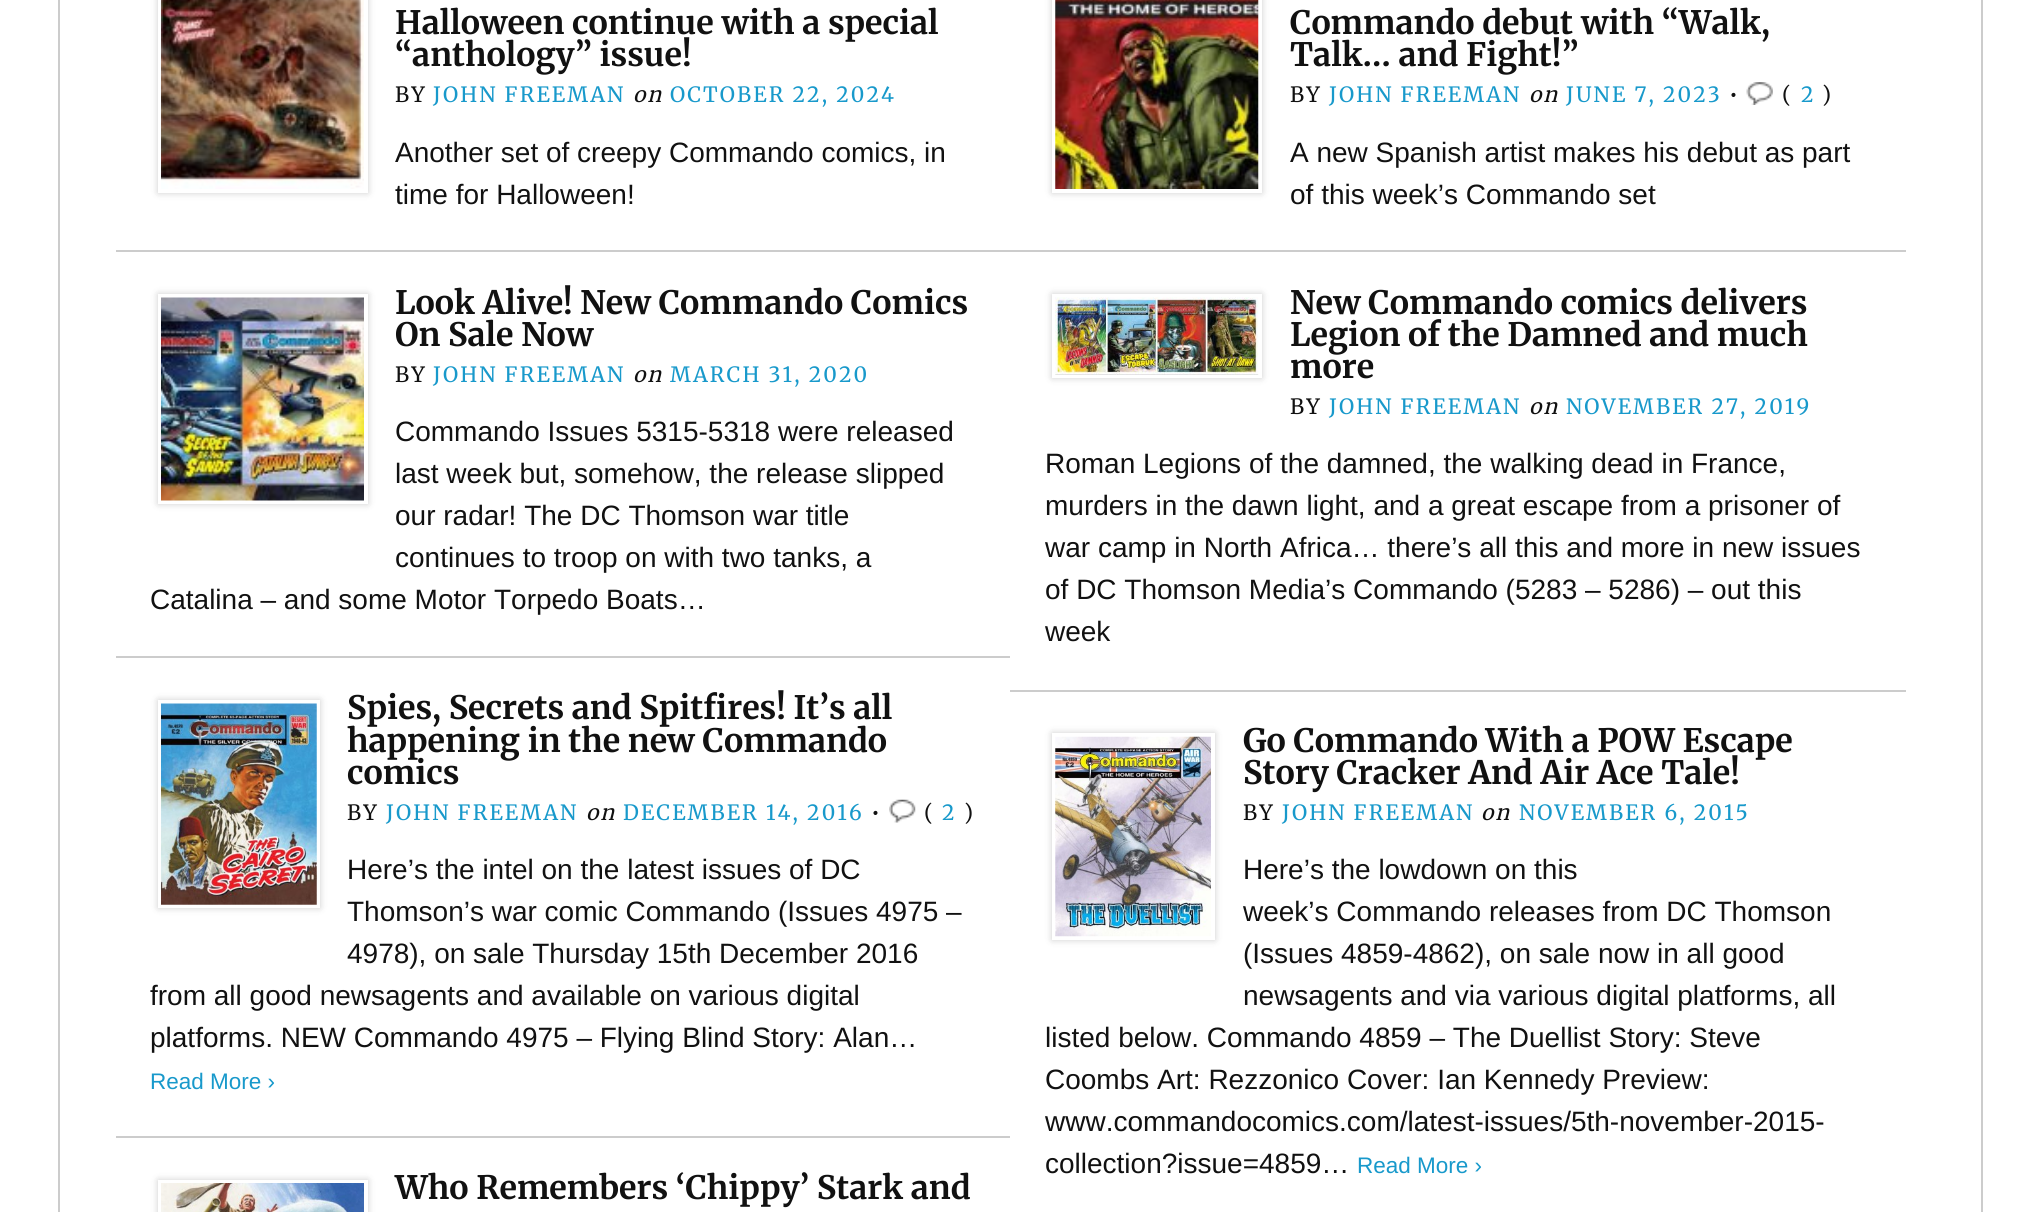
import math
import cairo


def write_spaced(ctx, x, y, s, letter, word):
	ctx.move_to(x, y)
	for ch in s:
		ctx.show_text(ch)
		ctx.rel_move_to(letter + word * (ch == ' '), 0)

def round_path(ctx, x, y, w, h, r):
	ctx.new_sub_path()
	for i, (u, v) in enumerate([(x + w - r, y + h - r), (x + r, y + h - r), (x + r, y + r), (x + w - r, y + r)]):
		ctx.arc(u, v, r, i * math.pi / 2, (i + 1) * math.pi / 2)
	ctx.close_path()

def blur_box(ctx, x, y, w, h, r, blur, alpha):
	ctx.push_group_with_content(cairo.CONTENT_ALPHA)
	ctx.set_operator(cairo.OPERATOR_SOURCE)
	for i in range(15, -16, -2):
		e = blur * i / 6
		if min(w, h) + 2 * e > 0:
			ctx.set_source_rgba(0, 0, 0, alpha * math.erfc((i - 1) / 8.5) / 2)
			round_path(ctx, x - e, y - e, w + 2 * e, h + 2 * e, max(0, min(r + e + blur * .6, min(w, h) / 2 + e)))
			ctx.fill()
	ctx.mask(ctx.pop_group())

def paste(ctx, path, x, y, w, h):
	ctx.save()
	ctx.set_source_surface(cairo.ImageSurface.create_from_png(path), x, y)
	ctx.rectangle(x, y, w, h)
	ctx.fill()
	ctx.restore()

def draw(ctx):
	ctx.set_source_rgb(1, 1, 1)
	ctx.paint()
	ctx.rectangle(59, -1, 1923, 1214)
	ctx.set_source_rgb(0.8, 0.8, 0.8)
	ctx.stroke()
	ctx.rectangle(116, 250, 1790, 2)
	ctx.fill()
	ctx.set_source_rgb(0, 0, 0)
	blur_box(ctx, 158, -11, 210, 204, 0, 3.5, 0.2)
	ctx.rectangle(160, -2, 206, 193)
	ctx.set_source_rgb(1, 1, 1)
	ctx.set_line_width(4)
	ctx.stroke()
	paste(ctx, 'media/1.png', 161, 0, 203, 189)
	ctx.select_font_face('Merriweather', cairo.FONT_SLANT_NORMAL, cairo.FONT_WEIGHT_BOLD)
	ctx.set_font_size(32.25)
	ctx.set_source_rgb(0.067, 0.067, 0.067)
	ctx.move_to(395, 34)
	ctx.show_text('Halloween continue with a special')
	ctx.move_to(395, 66)
	ctx.show_text('“anthology” issue!')
	ctx.select_font_face('Merriweather')
	ctx.set_font_size(21)
	write_spaced(ctx, 395, 102, 'BY', 2.1, 0)
	ctx.set_source_rgb(0.094, 0.6, 0.796)
	write_spaced(ctx, 433, 102, 'JOHN FREEMAN', 2.1, 0)
	ctx.select_font_face('Merriweather', cairo.FONT_SLANT_ITALIC)
	ctx.set_source_rgb(0.067, 0.067, 0.067)
	write_spaced(ctx, 633, 102, 'on', 2.1, 0)
	ctx.select_font_face('Merriweather')
	ctx.set_source_rgb(0.094, 0.6, 0.796)
	write_spaced(ctx, 670, 102, 'OCTOBER 22, 2024', 2.1, 0)
	ctx.select_font_face('Liberation Sans')
	ctx.set_font_size(28)
	ctx.set_source_rgb(0.067, 0.067, 0.067)
	ctx.move_to(395, 162)
	ctx.show_text('Another set of creepy Commando comics, in')
	ctx.move_to(395, 204)
	ctx.show_text('time for Halloween!')
	ctx.set_source_rgb(0, 0, 0)
	blur_box(ctx, 1052, -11, 210, 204, 0, 3.5, 0.2)
	ctx.rectangle(1054, -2, 206, 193)
	ctx.set_source_rgb(1, 1, 1)
	ctx.stroke()
	paste(ctx, 'media/2.png', 1055, 0, 204, 189)
	ctx.select_font_face('Merriweather', cairo.FONT_SLANT_NORMAL, cairo.FONT_WEIGHT_BOLD)
	ctx.set_font_size(32.25)
	ctx.set_source_rgb(0.067, 0.067, 0.067)
	ctx.move_to(1290, 34)
	ctx.show_text('Commando debut with “Walk,')
	ctx.move_to(1290, 66)
	ctx.show_text('Talk… and Fight!”')
	ctx.select_font_face('Merriweather')
	ctx.set_font_size(21)
	write_spaced(ctx, 1290, 102, 'BY', 2.1, 0)
	ctx.set_source_rgb(0.094, 0.6, 0.796)
	write_spaced(ctx, 1329, 102, 'JOHN FREEMAN', 2.1, 0)
	ctx.select_font_face('Merriweather', cairo.FONT_SLANT_ITALIC)
	ctx.set_source_rgb(0.067, 0.067, 0.067)
	write_spaced(ctx, 1529, 102, 'on', 2.1, 0)
	ctx.select_font_face('Merriweather')
	ctx.set_source_rgb(0.094, 0.6, 0.796)
	write_spaced(ctx, 1566, 102, 'JUNE 7, 2023', 2.1, 0)
	ctx.set_source_rgb(0.067, 0.067, 0.067)
	write_spaced(ctx, 1729, 102, '•', 2.1, 0)
	paste(ctx, 'media/3.png', 1746, 82, 27, 23)
	write_spaced(ctx, 1782, 102, '(', 2.1, 0)
	ctx.set_source_rgb(0.094, 0.6, 0.796)
	write_spaced(ctx, 1801, 102, '2', 2.1, 0)
	ctx.set_source_rgb(0.067, 0.067, 0.067)
	write_spaced(ctx, 1822, 102, ')', 2.1, 0)
	ctx.select_font_face('Liberation Sans')
	ctx.set_font_size(28)
	ctx.move_to(1290, 162)
	ctx.show_text('A new Spanish artist makes his debut as part')
	ctx.move_to(1290, 204)
	ctx.show_text('of this week’s Commando set')
	ctx.set_source_rgb(0.8, 0.8, 0.8)
	ctx.rectangle(116, 656, 894, 2)
	ctx.fill()
	ctx.set_source_rgb(0, 0, 0)
	blur_box(ctx, 158, 294, 210, 210, 0, 3.5, 0.2)
	ctx.rectangle(160, 296, 206, 206)
	ctx.set_source_rgb(1, 1, 1)
	ctx.stroke()
	paste(ctx, 'media/4.png', 161, 297, 203, 204)
	ctx.select_font_face('Merriweather', cairo.FONT_SLANT_NORMAL, cairo.FONT_WEIGHT_BOLD)
	ctx.set_font_size(32.25)
	ctx.set_source_rgb(0.067, 0.067, 0.067)
	ctx.move_to(395, 314)
	ctx.show_text('Look Alive! New Commando Comics')
	ctx.move_to(395, 346)
	ctx.show_text('On Sale Now')
	ctx.select_font_face('Merriweather')
	ctx.set_font_size(21)
	write_spaced(ctx, 395, 382, 'BY', 2.1, 0)
	ctx.set_source_rgb(0.094, 0.6, 0.796)
	write_spaced(ctx, 433, 382, 'JOHN FREEMAN', 2.1, 0)
	ctx.select_font_face('Merriweather', cairo.FONT_SLANT_ITALIC)
	ctx.set_source_rgb(0.067, 0.067, 0.067)
	write_spaced(ctx, 633, 382, 'on', 2.1, 0)
	ctx.select_font_face('Merriweather')
	ctx.set_source_rgb(0.094, 0.6, 0.796)
	write_spaced(ctx, 670, 382, 'MARCH 31, 2020', 2.1, 0)
	ctx.select_font_face('Liberation Sans')
	ctx.set_font_size(28)
	ctx.set_source_rgb(0.067, 0.067, 0.067)
	for x, y, s in [
		(395, 441, 'Commando Issues 5315-5318 were released'),
		(395, 483, 'last week but, somehow, the release slipped'),
		(395, 525, 'our radar! The DC Thomson war title'),
		(395, 567, 'continues to troop on with two tanks, a'),
		(150, 609, 'Catalina – and some Motor Torpedo Boats…'),
	]:
		ctx.move_to(x, y)
		ctx.show_text(s)
	ctx.set_source_rgb(0.8, 0.8, 0.8)
	ctx.rectangle(1010, 690, 896, 2)
	ctx.fill()
	ctx.set_source_rgb(0, 0, 0)
	blur_box(ctx, 1052, 294, 210, 84, 0, 3.5, 0.2)
	ctx.rectangle(1054, 296, 206, 80)
	ctx.set_source_rgb(1, 1, 1)
	ctx.stroke()
	paste(ctx, 'media/5.png', 1055, 297, 204, 78)
	ctx.select_font_face('Merriweather', cairo.FONT_SLANT_NORMAL, cairo.FONT_WEIGHT_BOLD)
	ctx.set_font_size(32.25)
	ctx.set_source_rgb(0.067, 0.067, 0.067)
	for x, y, s in [
		(1290, 314, 'New Commando comics delivers'),
		(1290, 346, 'Legion of the Damned and much'),
		(1290, 378, 'more'),
	]:
		ctx.move_to(x, y)
		ctx.show_text(s)
	ctx.select_font_face('Merriweather')
	ctx.set_font_size(21)
	write_spaced(ctx, 1290, 414, 'BY', 2.1, 0)
	ctx.set_source_rgb(0.094, 0.6, 0.796)
	write_spaced(ctx, 1329, 414, 'JOHN FREEMAN', 2.1, 0)
	ctx.select_font_face('Merriweather', cairo.FONT_SLANT_ITALIC)
	ctx.set_source_rgb(0.067, 0.067, 0.067)
	write_spaced(ctx, 1529, 414, 'on', 2.1, 0)
	ctx.select_font_face('Merriweather')
	ctx.set_source_rgb(0.094, 0.6, 0.796)
	write_spaced(ctx, 1566, 414, 'NOVEMBER 27, 2019', 2.1, 0)
	ctx.select_font_face('Liberation Sans')
	ctx.set_font_size(28)
	ctx.set_source_rgb(0.067, 0.067, 0.067)
	for x, y, s in [
		(1045, 473, 'Roman Legions of the damned, the walking dead in France,'),
		(1045, 515, 'murders in the dawn light, and a great escape from a prisoner of'),
		(1045, 557, 'war camp in North Africa… there’s all this and more in new issues'),
		(1045, 599, 'of DC Thomson Media’s Commando (5283 – 5286) – out this'),
		(1045, 641, 'week'),
	]:
		ctx.move_to(x, y)
		ctx.show_text(s)
	ctx.set_source_rgb(0.8, 0.8, 0.8)
	ctx.rectangle(116, 1136, 894, 2)
	ctx.fill()
	ctx.save()
	ctx.set_fill_rule(cairo.FILL_RULE_EVEN_ODD)
	ctx.new_path()
	ctx.move_to(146, 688)
	ctx.line_to(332, 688)
	ctx.line_to(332, 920)
	ctx.line_to(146, 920)
	ctx.close_path()
	ctx.move_to(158, 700)
	ctx.line_to(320, 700)
	ctx.line_to(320, 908)
	ctx.line_to(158, 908)
	ctx.close_path()
	ctx.clip()
	ctx.set_source_rgb(0, 0, 0)
	blur_box(ctx, 158, 700, 162, 208, 0, 3.5, 0.2)
	ctx.restore()
	paste(ctx, 'media/6.png', 161, 703, 156, 202)
	ctx.select_font_face('Merriweather', cairo.FONT_SLANT_NORMAL, cairo.FONT_WEIGHT_BOLD)
	ctx.set_font_size(32.25)
	ctx.set_source_rgb(0.067, 0.067, 0.067)
	for x, y, s in [
		(347, 719, 'Spies, Secrets and Spitfires! It’s all'),
		(347, 752, 'happening in the new Commando'),
		(347, 784, 'comics'),
	]:
		ctx.move_to(x, y)
		ctx.show_text(s)
	ctx.select_font_face('Merriweather')
	ctx.set_font_size(21)
	write_spaced(ctx, 347, 820, 'BY', 2.1, 0)
	ctx.set_source_rgb(0.094, 0.6, 0.796)
	write_spaced(ctx, 386, 820, 'JOHN FREEMAN', 2.1, 0)
	ctx.select_font_face('Merriweather', cairo.FONT_SLANT_ITALIC)
	ctx.set_source_rgb(0.067, 0.067, 0.067)
	write_spaced(ctx, 586, 820, 'on', 2.1, 0)
	ctx.select_font_face('Merriweather')
	ctx.set_source_rgb(0.094, 0.6, 0.796)
	write_spaced(ctx, 623, 820, 'DECEMBER 14, 2016', 2.1, 0)
	ctx.set_source_rgb(0.067, 0.067, 0.067)
	write_spaced(ctx, 871, 820, '•', 2.1, 0)
	paste(ctx, 'media/7.png', 889, 799, 27, 24)
	write_spaced(ctx, 924, 820, '(', 2.1, 0)
	ctx.set_source_rgb(0.094, 0.6, 0.796)
	write_spaced(ctx, 942, 820, '2', 2.1, 0)
	ctx.set_source_rgb(0.067, 0.067, 0.067)
	write_spaced(ctx, 964, 820, ')', 2.1, 0)
	ctx.select_font_face('Liberation Sans')
	ctx.set_font_size(28)
	for x, y, s in [
		(347, 879, 'Here’s the intel on the latest issues of DC'),
		(347, 921, 'Thomson’s war comic Commando (Issues 4975 –'),
		(347, 963, '4978), on sale Thursday 15th December 2016'),
		(150, 1005, 'from all good newsagents and available on various digital'),
		(150, 1047, 'platforms. NEW Commando 4975 – Flying Blind Story: Alan…'),
	]:
		ctx.move_to(x, y)
		ctx.show_text(s)
	ctx.set_font_size(22.5)
	ctx.set_source_rgb(0.094, 0.6, 0.796)
	ctx.move_to(150, 1089)
	ctx.show_text('Read More ›')
	ctx.set_source_rgb(0, 0, 0)
	blur_box(ctx, 1052, 733, 163, 207, 0, 3.5, 0.2)
	ctx.rectangle(1054, 735, 159, 203)
	ctx.set_source_rgb(1, 1, 1)
	ctx.stroke()
	paste(ctx, 'media/8.png', 1055, 736, 156, 201)
	ctx.select_font_face('Merriweather', cairo.FONT_SLANT_NORMAL, cairo.FONT_WEIGHT_BOLD)
	ctx.set_font_size(32.25)
	ctx.set_source_rgb(0.067, 0.067, 0.067)
	ctx.move_to(1243, 752)
	ctx.show_text('Go Commando With a POW Escape')
	ctx.move_to(1243, 784)
	ctx.show_text('Story Cracker And Air Ace Tale!')
	ctx.select_font_face('Merriweather')
	ctx.set_font_size(21)
	write_spaced(ctx, 1243, 820, 'BY', 2.1, 0)
	ctx.set_source_rgb(0.094, 0.6, 0.796)
	write_spaced(ctx, 1282, 820, 'JOHN FREEMAN', 2.1, 0)
	ctx.select_font_face('Merriweather', cairo.FONT_SLANT_ITALIC)
	ctx.set_source_rgb(0.067, 0.067, 0.067)
	write_spaced(ctx, 1481, 820, 'on', 2.1, 0)
	ctx.select_font_face('Merriweather')
	ctx.set_source_rgb(0.094, 0.6, 0.796)
	write_spaced(ctx, 1519, 820, 'NOVEMBER 6, 2015', 2.1, 0)
	ctx.select_font_face('Liberation Sans')
	ctx.set_font_size(28)
	ctx.set_source_rgb(0.067, 0.067, 0.067)
	for x, y, s in [
		(1243, 879, 'Here’s the lowdown on this'),
		(1243, 921, 'week’s Commando releases from DC Thomson'),
		(1243, 963, '(Issues 4859-4862), on sale now in all good'),
		(1243, 1005, 'newsagents and via various digital platforms, all'),
		(1045, 1047, 'listed below. Commando 4859 – The Duellist Story: Steve'),
		(1045, 1089, 'Coombs Art: Rezzonico Cover: Ian Kennedy Preview:'),
		(1045, 1131, 'www.commandocomics.com/latest-issues/5th-november-2015-'),
		(1045, 1173, 'collection?issue=4859…'),
	]:
		ctx.move_to(x, y)
		ctx.show_text(s)
	ctx.set_font_size(22.5)
	ctx.set_source_rgb(0.094, 0.6, 0.796)
	ctx.move_to(1357, 1173)
	ctx.show_text('Read More ›')
	ctx.set_source_rgb(0, 0, 0)
	blur_box(ctx, 158, 1180, 210, 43, 0, 3.5, 0.2)
	ctx.rectangle(160, 1182, 206, 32)
	ctx.set_source_rgb(1, 1, 1)
	ctx.stroke()
	paste(ctx, 'media/9.png', 161, 1183, 203, 29)
	ctx.select_font_face('Merriweather', cairo.FONT_SLANT_NORMAL, cairo.FONT_WEIGHT_BOLD)
	ctx.set_font_size(32.25)
	ctx.set_source_rgb(0.067, 0.067, 0.067)
	ctx.move_to(395, 1199)
	ctx.show_text('Who Remembers ‘Chippy’ Stark and')


surface = cairo.ImageSurface(cairo.FORMAT_RGB24, 2038, 1212)
ctx = cairo.Context(surface)
options = cairo.FontOptions()
options.set_hint_metrics(cairo.HINT_METRICS_OFF)
options.set_hint_style(cairo.HINT_STYLE_NONE)
ctx.set_font_options(options)
ctx.set_miter_limit(4)
draw(ctx)
surface.write_to_png('image.png')
